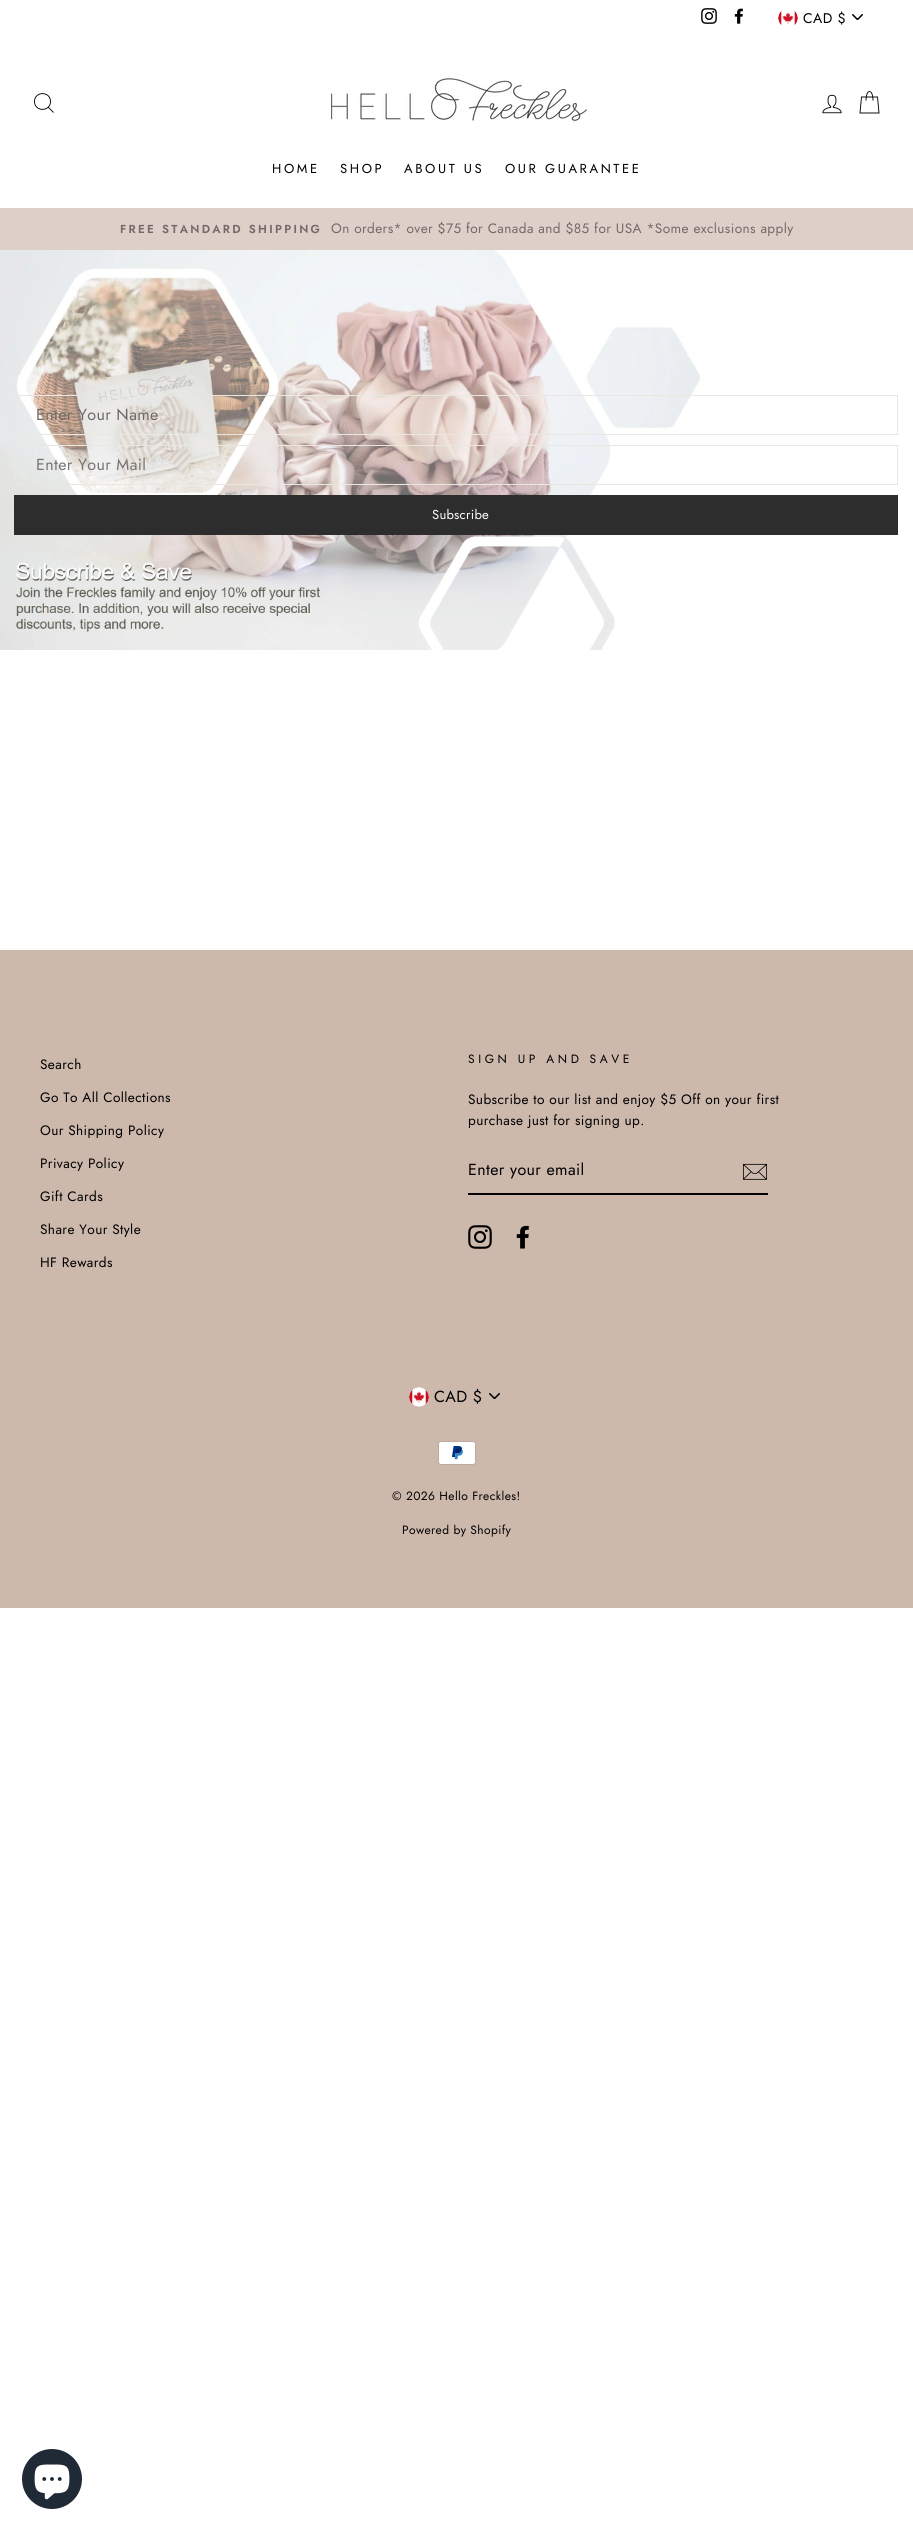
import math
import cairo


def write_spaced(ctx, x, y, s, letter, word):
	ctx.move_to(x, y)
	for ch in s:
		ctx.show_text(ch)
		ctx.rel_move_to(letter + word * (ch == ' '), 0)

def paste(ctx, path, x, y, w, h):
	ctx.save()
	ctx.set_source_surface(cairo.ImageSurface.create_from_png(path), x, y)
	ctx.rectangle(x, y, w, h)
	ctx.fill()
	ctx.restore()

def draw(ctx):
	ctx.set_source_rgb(1, 1, 1)
	ctx.paint()
	paste(ctx, 'media/1.png', 701, 8, 16, 16)
	paste(ctx, 'media/2.png', 734, 8, 9, 16)
	paste(ctx, 'media/3.png', 852, 14, 11, 6)
	paste(ctx, 'media/4.png', 778, 11, 20, 15)
	ctx.select_font_face('Jost')
	ctx.set_font_size(14)
	ctx.set_source_rgb(0, 0, 0)
	write_spaced(ctx, 803, 23, 'CAD $', 0.5, 0)
	ctx.new_path()
	ctx.move_to(50.5, 101.5)
	ctx.curve_to(50.5, 112, 34.5, 112, 34.5, 101.5)
	ctx.curve_to(34.5, 91, 50.5, 91, 50.5, 101.5)
	ctx.close_path()
	ctx.move_to(53.5, 112.5)
	ctx.line_to(48.5, 107.5)
	ctx.set_line_width(0.9)
	ctx.stroke()
	paste(ctx, 'media/5.png', 330, 76, 259, 47)
	paste(ctx, 'media/6.png', 822, 94, 20, 20)
	ctx.new_path()
	ctx.move_to(866, 100.5)
	ctx.curve_to(866, 88.5, 873, 88.5, 873, 100.5)
	ctx.move_to(861.5, 97)
	ctx.line_to(877.5, 97)
	ctx.line_to(879, 113)
	ctx.line_to(860, 113)
	ctx.close_path()
	ctx.stroke()
	ctx.set_font_size(13)
	for x, y, s in [
		(272, 173, 'HOME'),
		(340, 173, 'SHOP'),
		(404, 173, 'ABOUT US'),
		(505, 173, 'OUR GUARANTEE'),
	]:
		write_spaced(ctx, x, y, s, 2.6, 0)
	ctx.set_source_rgb(0.867, 0.816, 0.788)
	ctx.rectangle(0, 208, 913, 42)
	ctx.fill()
	ctx.select_font_face('Jost SemiBold')
	ctx.set_font_size(11.6)
	ctx.set_source_rgb(0.459, 0.408, 0.408)
	write_spaced(ctx, 120, 233, 'FREE STANDARD SHIPPING', 2.3, 0)
	ctx.select_font_face('Jost')
	ctx.set_font_size(13.6)
	write_spaced(ctx, 331, 233, 'On orders* over $75 for Canada and $85 for USA *Some exclusions apply', 0.4, 0)
	paste(ctx, 'media/7.png', 0, 250, 701, 400)
	ctx.rectangle(15.5, 395.5, 882, 39)
	ctx.set_source_rgb(0.91, 0.91, 0.882)
	ctx.set_line_width(1)
	ctx.stroke()
	ctx.set_font_size(16)
	ctx.set_source_rgb(0.431, 0.408, 0.392)
	write_spaced(ctx, 36, 420, 'Enter Your Name', 0.4, 0)
	ctx.rectangle(15.5, 445.5, 882, 39)
	ctx.set_source_rgb(0.91, 0.91, 0.882)
	ctx.stroke()
	ctx.set_source_rgb(0.459, 0.455, 0.451)
	write_spaced(ctx, 36, 470, 'Enter Your Mail', 0.4, 0)
	ctx.set_source_rgb(0.176, 0.176, 0.176)
	ctx.rectangle(14, 495, 884, 40)
	ctx.fill()
	ctx.set_font_size(13)
	ctx.set_source_rgb(1, 1, 1)
	write_spaced(ctx, 432, 519, 'Subscribe', 0.25, 0)
	ctx.set_source_rgb(0.804, 0.722, 0.675)
	ctx.rectangle(0, 950, 913, 658)
	ctx.fill()
	ctx.set_font_size(13.6)
	ctx.set_source_rgb(0, 0, 0)
	for x, y, s in [
		(40, 1069, 'Search'),
		(40, 1102, 'Go To All Collections'),
		(40, 1135, 'Our Shipping Policy'),
		(40, 1168, 'Privacy Policy'),
		(40, 1201, 'Gift Cards'),
		(40, 1234, 'Share Your Style'),
		(40, 1267, 'HF Rewards'),
	]:
		write_spaced(ctx, x, y, s, 0.4, 0)
	ctx.set_font_size(12)
	write_spaced(ctx, 468, 1063, 'SIGN UP AND SAVE', 3.6, 0)
	ctx.set_font_size(13.6)
	write_spaced(ctx, 468, 1104, 'Subscribe to our list and enjoy $5 Off on your first', 0.4, 0)
	write_spaced(ctx, 468, 1125, 'purchase just for signing up.', 0.4, 0)
	ctx.rectangle(468, 1193, 300, 2)
	ctx.fill()
	ctx.set_font_size(16)
	write_spaced(ctx, 468, 1175, 'Enter your email', 0.4, 0)
	paste(ctx, 'media/8.png', 742, 1163, 26, 17)
	paste(ctx, 'media/9.png', 468, 1225, 24, 24)
	paste(ctx, 'media/10.png', 516, 1225, 13, 24)
	paste(ctx, 'media/11.png', 489, 1393, 11, 6)
	paste(ctx, 'media/12.png', 409, 1387, 20, 20)
	write_spaced(ctx, 434, 1402, 'CAD $', 0.4, 0)
	paste(ctx, 'media/13.png', 438, 1441, 38, 24)
	ctx.set_font_size(12)
	write_spaced(ctx, 392, 1500, '© 2026 Hello Freckles!', 0.4, 0)
	write_spaced(ctx, 402, 1534, 'Powered by Shopify', 0.4, 0)
	ctx.set_source_rgb(0.125, 0.165, 0.212)
	ctx.new_path()
	ctx.arc(52, 2479, 30, 0, 2 * math.pi)
	ctx.fill()
	paste(ctx, 'media/14.png', 34, 2464, 36, 36)


surface = cairo.ImageSurface(cairo.FORMAT_RGB24, 913, 2530)
ctx = cairo.Context(surface)
options = cairo.FontOptions()
options.set_hint_metrics(cairo.HINT_METRICS_OFF)
options.set_hint_style(cairo.HINT_STYLE_NONE)
ctx.set_font_options(options)
ctx.set_miter_limit(4)
draw(ctx)
surface.write_to_png('image.png')
